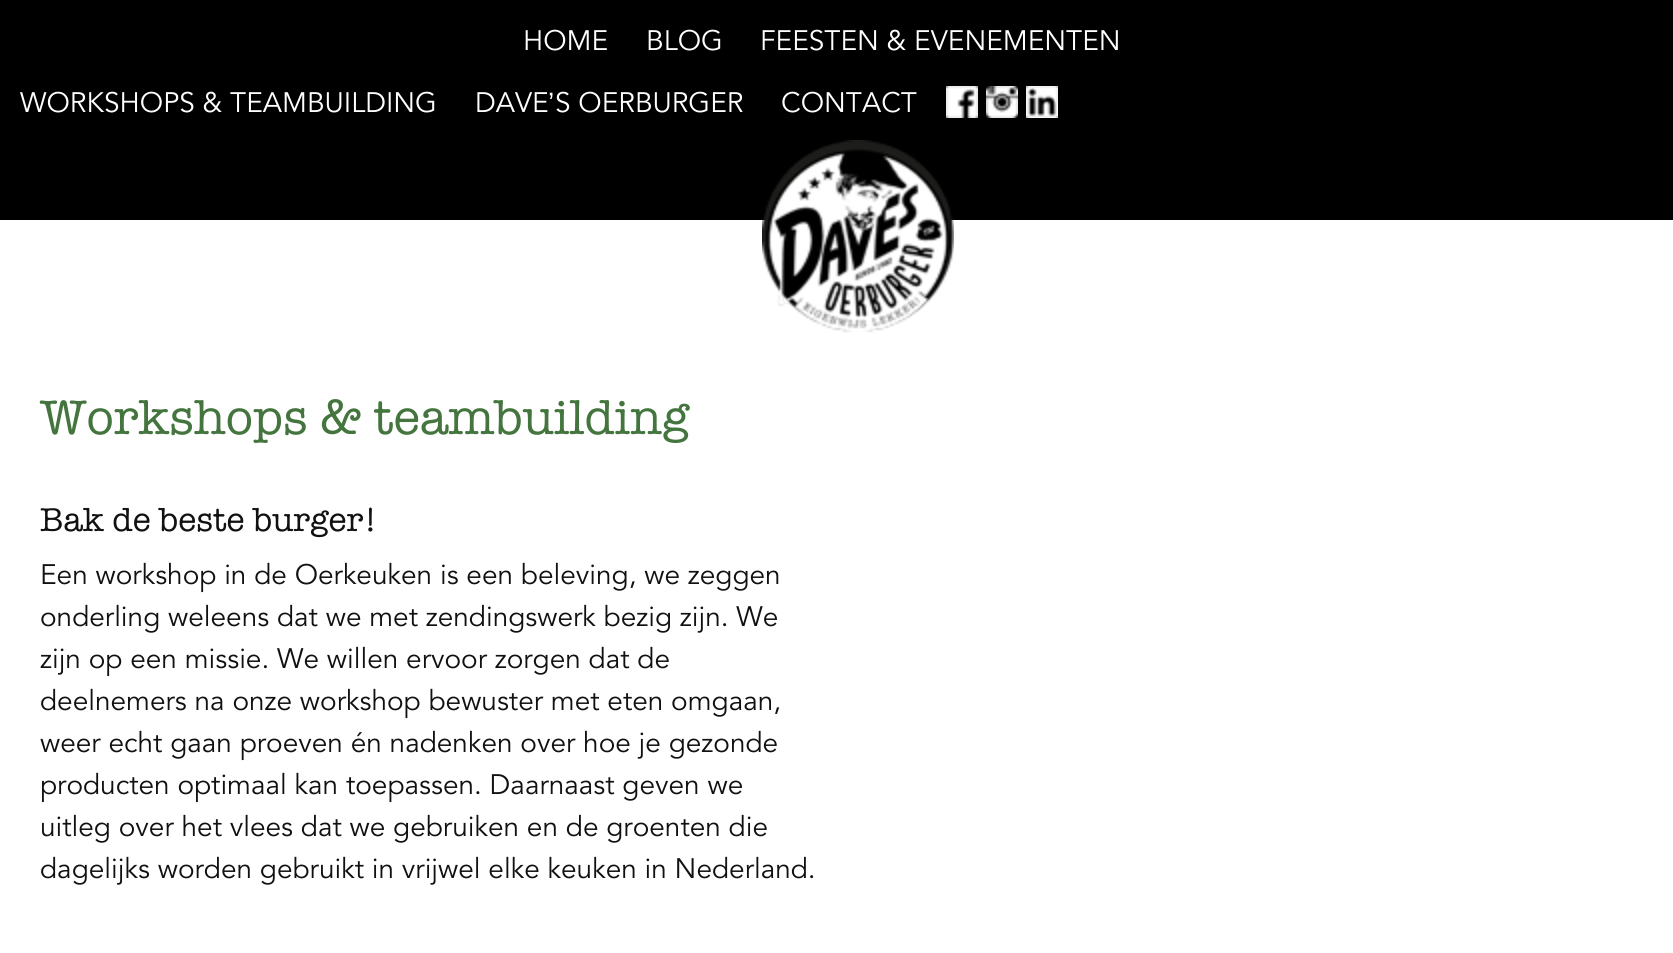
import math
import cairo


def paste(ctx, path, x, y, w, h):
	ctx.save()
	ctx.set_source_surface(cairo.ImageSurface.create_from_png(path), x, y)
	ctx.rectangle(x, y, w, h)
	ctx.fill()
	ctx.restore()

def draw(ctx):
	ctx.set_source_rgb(1, 1, 1)
	ctx.paint()
	ctx.set_source_rgb(0, 0, 0)
	ctx.rectangle(0, 0, 1673, 220)
	ctx.fill()
	ctx.select_font_face('Avenir')
	ctx.set_font_size(28)
	ctx.set_source_rgb(1, 1, 1)
	for x, y, s in [
		(523, 50, 'HOME'),
		(646, 50, 'BLOG'),
		(760, 50, 'FEESTEN & EVENEMENTEN'),
		(20, 112, 'WORKSHOPS & TEAMBUILDING'),
		(475, 112, 'DAVE'),
	]:
		ctx.move_to(x, y)
		ctx.show_text(s)
	ctx.select_font_face('Liberation Sans')
	ctx.move_to(548, 112)
	ctx.show_text('’')
	ctx.select_font_face('Avenir')
	ctx.move_to(555, 112)
	ctx.show_text('S OERBURGER')
	ctx.move_to(781, 112)
	ctx.show_text('CONTACT')
	paste(ctx, 'media/1.png', 946, 86, 32, 32)
	paste(ctx, 'media/2.png', 986, 86, 32, 32)
	paste(ctx, 'media/3.png', 1026, 86, 32, 32)
	paste(ctx, 'media/4.png', 762, 140, 192, 193)
	ctx.select_font_face('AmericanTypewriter')
	ctx.set_font_size(50)
	ctx.set_source_rgb(0.267, 0.459, 0.243)
	ctx.move_to(40, 434)
	ctx.show_text('Workshops & teambuilding')
	ctx.set_font_size(34)
	ctx.set_source_rgb(0.067, 0.067, 0.067)
	ctx.move_to(40, 531)
	ctx.show_text('Bak de beste burger!')
	ctx.select_font_face('Avenir')
	ctx.set_font_size(28)
	for x, y, s in [
		(40, 584, 'Een workshop in de Oerkeuken is een beleving, we zeggen'),
		(40, 626, 'onderling weleens dat we met zendingswerk bezig zijn. We'),
		(40, 668, 'zijn op een missie. We willen ervoor zorgen dat de'),
		(40, 710, 'deelnemers na onze workshop bewuster met eten omgaan,'),
		(40, 752, 'weer echt gaan proeven én nadenken over hoe je gezonde'),
		(40, 794, 'producten optimaal kan toepassen. Daarnaast geven we'),
		(40, 836, 'uitleg over het vlees dat we gebruiken en de groenten die'),
		(40, 878, 'dagelijks worden gebruikt in vrijwel elke keuken in Nederland.'),
	]:
		ctx.move_to(x, y)
		ctx.show_text(s)


surface = cairo.ImageSurface(cairo.FORMAT_RGB24, 1673, 953)
ctx = cairo.Context(surface)
options = cairo.FontOptions()
options.set_hint_metrics(cairo.HINT_METRICS_OFF)
options.set_hint_style(cairo.HINT_STYLE_NONE)
ctx.set_font_options(options)
ctx.set_miter_limit(4)
draw(ctx)
surface.write_to_png('image.png')
